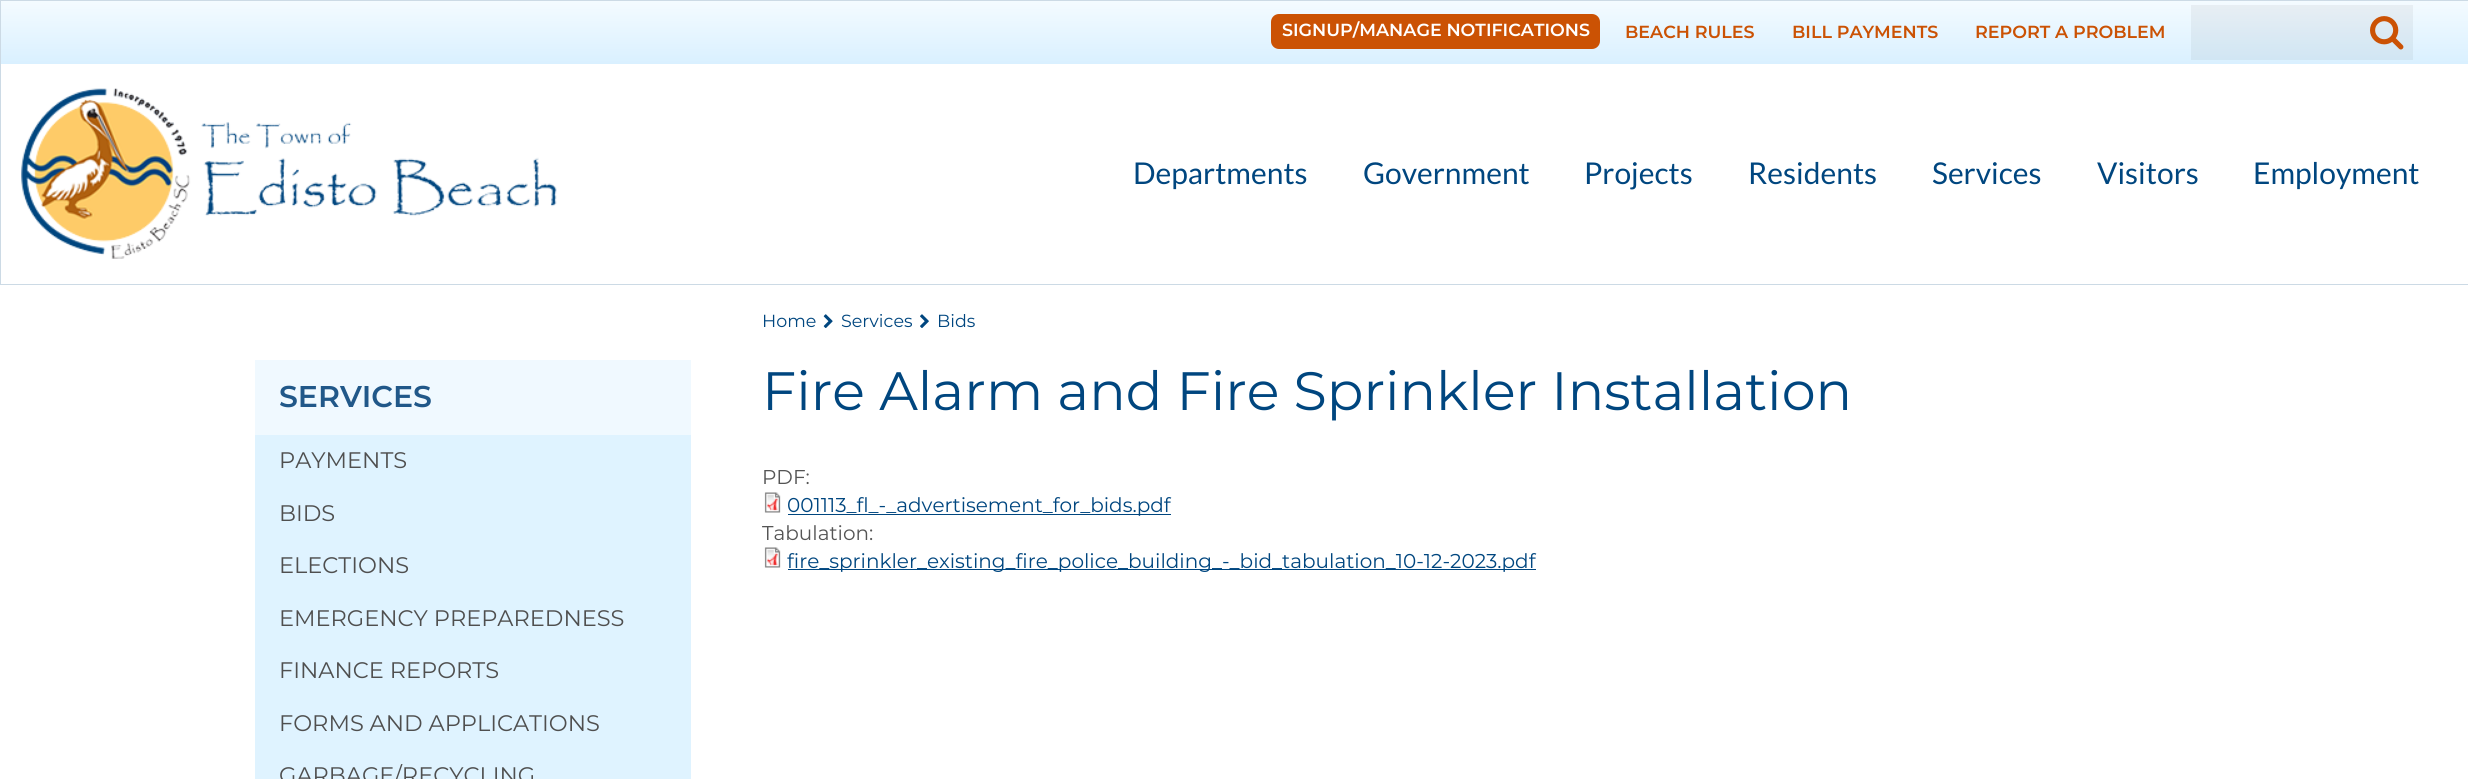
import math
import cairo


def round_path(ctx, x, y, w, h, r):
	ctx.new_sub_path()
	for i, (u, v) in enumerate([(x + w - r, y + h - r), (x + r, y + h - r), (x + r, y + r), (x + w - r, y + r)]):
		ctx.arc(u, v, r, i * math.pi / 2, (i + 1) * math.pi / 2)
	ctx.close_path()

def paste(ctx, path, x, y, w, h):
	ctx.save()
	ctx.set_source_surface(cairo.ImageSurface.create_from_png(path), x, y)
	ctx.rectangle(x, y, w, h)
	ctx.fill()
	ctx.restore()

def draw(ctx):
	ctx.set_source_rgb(1, 1, 1)
	ctx.paint()
	ctx.rectangle(0.5, 0.5, 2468, 284)
	ctx.set_source_rgb(0.8, 0.855, 0.898)
	ctx.set_line_width(1)
	ctx.stroke()
	gradient = cairo.LinearGradient(1234, 1.2, 1234, 64)
	gradient.add_color_stop_rgba(0, 0.957, 0.984, 1, 1)
	gradient.add_color_stop_rgba(1, 0.851, 0.941, 1, 1)
	ctx.set_source(gradient)
	ctx.rectangle(1, 1, 2467, 63)
	ctx.fill()
	ctx.set_source_rgb(0.796, 0.322, 0.016)
	round_path(ctx, 1271, 14, 329, 35, 8)
	ctx.fill()
	ctx.select_font_face('Montserrat SemiBold')
	ctx.set_font_size(17.5)
	ctx.set_source_rgb(1, 1, 1)
	ctx.move_to(1282, 36)
	ctx.show_text('SIGNUP/MANAGE NOTIFICATIONS')
	ctx.set_source_rgb(0.796, 0.322, 0.016)
	for x, y, s in [
		(1625, 38, 'BEACH RULES'),
		(1792, 38, 'BILL PAYMENTS'),
		(1975, 38, 'REPORT A PROBLEM'),
	]:
		ctx.move_to(x, y)
		ctx.show_text(s)
	ctx.set_source_rgba(0, 0, 0, 0.05)
	ctx.rectangle(2191, 5, 222, 55)
	ctx.fill()
	paste(ctx, 'media/1.png', 2370, 16, 34, 34)
	paste(ctx, 'media/2.png', 21, 88, 536, 171)
	ctx.select_font_face('Lato')
	ctx.set_font_size(30)
	ctx.set_source_rgb(0, 0.275, 0.498)
	for x, y, s in [
		(1133, 184, 'Departments'),
		(1363, 184, 'Government'),
		(1584, 184, 'Projects'),
		(1748, 184, 'Residents'),
		(1932, 184, 'Services'),
		(2097, 184, 'Visitors'),
		(2253, 184, 'Employment'),
	]:
		ctx.move_to(x, y)
		ctx.show_text(s)
	ctx.set_source_rgb(0.941, 0.976, 1)
	ctx.rectangle(255, 360, 436, 75)
	ctx.fill()
	ctx.select_font_face('Montserrat SemiBold')
	ctx.set_source_rgb(0.129, 0.345, 0.537)
	ctx.move_to(279, 407)
	ctx.show_text('SERVICES')
	ctx.set_source_rgb(0.875, 0.953, 1)
	ctx.rectangle(255, 435, 436, 344)
	ctx.fill()
	ctx.select_font_face('Montserrat')
	ctx.set_font_size(22.5)
	ctx.set_source_rgb(0.31, 0.31, 0.31)
	for x, y, s in [
		(279, 468, 'PAYMENTS'),
		(279, 521, 'BIDS'),
		(279, 573, 'ELECTIONS'),
		(279, 626, 'EMERGENCY PREPAREDNESS'),
		(279, 678, 'FINANCE REPORTS'),
		(279, 731, 'FORMS AND APPLICATIONS'),
		(279, 783, 'GARBAGE/RECYCLING'),
	]:
		ctx.move_to(x, y)
		ctx.show_text(s)
	ctx.set_font_size(17.5)
	ctx.set_source_rgb(0, 0.275, 0.498)
	ctx.move_to(762, 327)
	ctx.show_text('Home')
	paste(ctx, 'media/3.png', 823, 314, 10, 14)
	ctx.move_to(841, 327)
	ctx.show_text('Services')
	paste(ctx, 'media/4.png', 920, 314, 9, 14)
	ctx.move_to(937, 327)
	ctx.show_text('Bids')
	ctx.set_font_size(54)
	ctx.move_to(762, 410)
	ctx.show_text('Fire Alarm and Fire Sprinkler Installation')
	ctx.set_font_size(20)
	ctx.set_source_rgb(0.333, 0.333, 0.333)
	ctx.move_to(762, 484)
	ctx.show_text('PDF:')
	paste(ctx, 'media/5.png', 764, 492, 17, 21)
	ctx.set_source_rgb(0, 0.275, 0.498)
	ctx.rectangle(788, 514, 383, 1)
	ctx.fill()
	ctx.move_to(787, 512)
	ctx.show_text('001113_fl_-_advertisement_for_bids.pdf')
	ctx.set_source_rgb(0.333, 0.333, 0.333)
	ctx.move_to(762, 540)
	ctx.show_text('Tabulation:')
	paste(ctx, 'media/5.png', 764, 547, 17, 21)
	ctx.set_source_rgb(0, 0.275, 0.498)
	ctx.rectangle(788, 569, 748, 1)
	ctx.fill()
	ctx.move_to(787, 568)
	ctx.show_text('fire_sprinkler_existing_fire_police_building_-_bid_tabulation_10-12-2023.pdf')


surface = cairo.ImageSurface(cairo.FORMAT_RGB24, 2468, 779)
ctx = cairo.Context(surface)
options = cairo.FontOptions()
options.set_hint_metrics(cairo.HINT_METRICS_OFF)
options.set_hint_style(cairo.HINT_STYLE_NONE)
ctx.set_font_options(options)
ctx.set_miter_limit(4)
draw(ctx)
surface.write_to_png('image.png')
